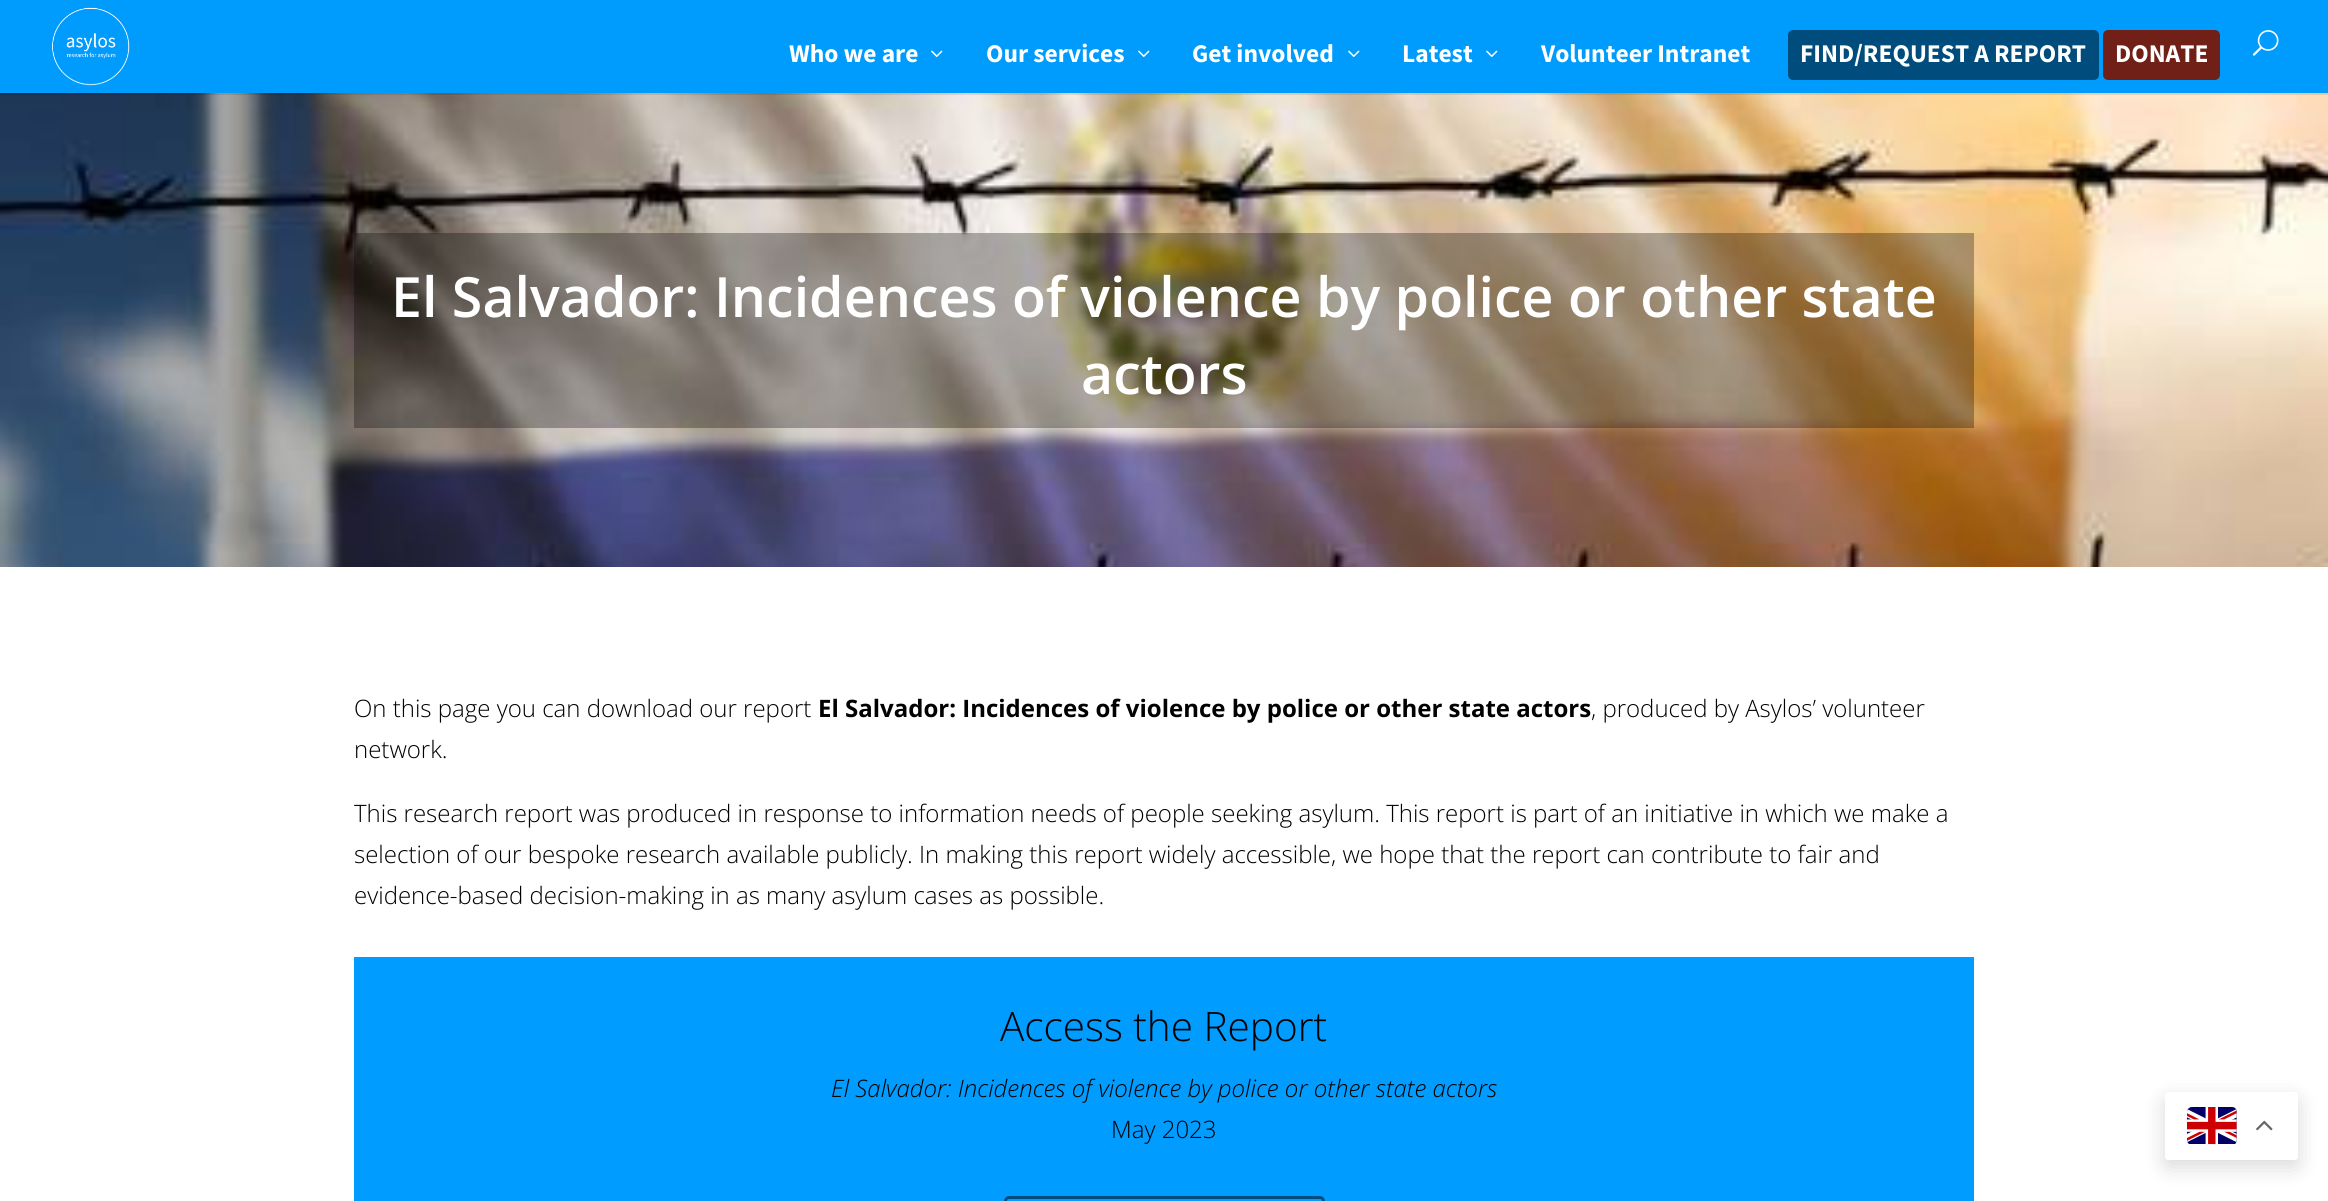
import math
import cairo


def round_path(ctx, x, y, w, h, r):
	ctx.new_sub_path()
	for i, (u, v) in enumerate([(x + w - r, y + h - r), (x + r, y + h - r), (x + r, y + r), (x + w - r, y + r)]):
		ctx.arc(u, v, r, i * math.pi / 2, (i + 1) * math.pi / 2)
	ctx.close_path()

def blur_box(ctx, x, y, w, h, r, blur, alpha):
	ctx.push_group_with_content(cairo.CONTENT_ALPHA)
	ctx.set_operator(cairo.OPERATOR_SOURCE)
	for i in range(15, -16, -2):
		e = blur * i / 6
		if min(w, h) + 2 * e > 0:
			ctx.set_source_rgba(0, 0, 0, alpha * math.erfc((i - 1) / 8.5) / 2)
			round_path(ctx, x - e, y - e, w + 2 * e, h + 2 * e, max(0, min(r + e + blur * .6, min(w, h) / 2 + e)))
			ctx.fill()
	ctx.mask(ctx.pop_group())

def paste(ctx, path, x, y, w, h):
	ctx.save()
	ctx.set_source_surface(cairo.ImageSurface.create_from_png(path), x, y)
	ctx.rectangle(x, y, w, h)
	ctx.fill()
	ctx.restore()

def draw(ctx):
	ctx.set_source_rgb(1, 1, 1)
	ctx.paint()
	paste(ctx, 'media/4.png', 0, 93, 2328, 474)
	ctx.set_source_rgba(0, 0, 0, 0.1)
	ctx.rectangle(0, 93, 2328, 2)
	ctx.fill()
	ctx.set_source_rgb(0, 0.612, 0.992)
	ctx.rectangle(0, 0, 2328, 93)
	ctx.fill()
	paste(ctx, 'media/1.png', 52, 7, 78, 79)
	ctx.select_font_face('Source Sans Pro', cairo.FONT_SLANT_NORMAL, cairo.FONT_WEIGHT_BOLD)
	ctx.set_font_size(25.5)
	ctx.set_source_rgb(1, 1, 1)
	ctx.move_to(789, 62)
	ctx.show_text('Who we are')
	paste(ctx, 'media/2.png', 931, 50, 12, 7)
	ctx.move_to(986, 62)
	ctx.show_text('Our services')
	paste(ctx, 'media/2.png', 1138, 50, 12, 7)
	ctx.move_to(1192, 62)
	ctx.show_text('Get involved')
	paste(ctx, 'media/2.png', 1348, 50, 12, 7)
	ctx.move_to(1402, 62)
	ctx.show_text('Latest')
	paste(ctx, 'media/2.png', 1486, 50, 12, 7)
	ctx.move_to(1541, 62)
	ctx.show_text('Volunteer Intranet')
	ctx.set_source_rgb(0, 0.302, 0.49)
	round_path(ctx, 1790.5, 32.5, 306, 45, 2.5)
	ctx.fill_preserve()
	ctx.set_line_width(5)
	ctx.stroke()
	ctx.set_source_rgb(1, 1, 1)
	ctx.move_to(1800, 62)
	ctx.show_text('FIND/REQUEST A REPORT')
	ctx.set_source_rgb(0.439, 0.125, 0.09)
	round_path(ctx, 2105.5, 32.5, 112, 45, 2.5)
	ctx.fill_preserve()
	ctx.stroke()
	ctx.set_source_rgb(1, 1, 1)
	ctx.move_to(2115, 62)
	ctx.show_text('DONATE')
	paste(ctx, 'media/3.png', 2252, 30, 27, 26)
	ctx.set_source_rgba(0, 0, 0, 0.3)
	ctx.rectangle(354, 233, 1620, 195)
	ctx.fill()
	ctx.select_font_face('Open Sans SemiBold')
	ctx.set_font_size(55.5)
	ctx.set_source_rgb(1, 1, 1)
	ctx.move_to(391, 317)
	ctx.show_text('El Salvador: Incidences of violence by police or other state')
	ctx.move_to(1081, 394)
	ctx.show_text('actors')
	ctx.select_font_face('Open Sans Light')
	ctx.set_font_size(24)
	ctx.set_source_rgb(0, 0, 0)
	ctx.move_to(354, 717)
	ctx.show_text('On this page you can download our report')
	ctx.select_font_face('Open Sans', cairo.FONT_SLANT_NORMAL, cairo.FONT_WEIGHT_BOLD)
	ctx.move_to(818, 717)
	ctx.show_text('El Salvador: Incidences of violence by police or other state actors')
	ctx.select_font_face('Open Sans Light')
	for x, y, s in [
		(1591, 717, ', produced by Asylos’ volunteer'),
		(354, 758, 'network.'),
		(354, 822, 'This research report was produced in response to information needs of people seeking asylum. This report is part of an initiative in which we make a'),
		(354, 863, 'selection of our bespoke research available publicly. In making this report widely accessible, we hope that the report can contribute to fair and'),
		(354, 904, 'evidence-based decision-making in as many asylum cases as possible.'),
	]:
		ctx.move_to(x, y)
		ctx.show_text(s)
	ctx.set_source_rgb(0, 0.612, 1)
	ctx.rectangle(354, 957, 1620, 244)
	ctx.fill()
	ctx.set_font_size(40.5)
	ctx.set_source_rgb(0, 0, 0)
	ctx.move_to(1000, 1041)
	ctx.show_text('Access the Report')
	ctx.select_font_face('Open Sans Light', cairo.FONT_SLANT_ITALIC)
	ctx.set_font_size(24)
	ctx.move_to(831, 1097)
	ctx.show_text('El Salvador: Incidences of violence by police or other state actors')
	ctx.select_font_face('Open Sans Light')
	ctx.move_to(1111, 1138)
	ctx.show_text('May 2023')
	round_path(ctx, 1005.5, 1197.5, 318, 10, 3.5)
	ctx.set_source_rgb(0, 0.302, 0.49)
	ctx.set_line_width(3)
	ctx.stroke()
	ctx.set_source_rgb(0, 0, 0)
	blur_box(ctx, 2165, 1100, 133, 67, 3, 11, 0.15)
	ctx.set_source_rgb(1, 1, 1)
	round_path(ctx, 2165, 1092, 133, 68, 3)
	ctx.fill()
	paste(ctx, 'media/5.png', 2187, 1107, 50, 38)
	paste(ctx, 'media/6.png', 2256, 1120, 17, 11)


surface = cairo.ImageSurface(cairo.FORMAT_RGB24, 2328, 1201)
ctx = cairo.Context(surface)
options = cairo.FontOptions()
options.set_hint_metrics(cairo.HINT_METRICS_OFF)
options.set_hint_style(cairo.HINT_STYLE_NONE)
ctx.set_font_options(options)
ctx.set_miter_limit(4)
draw(ctx)
surface.write_to_png('image.png')
